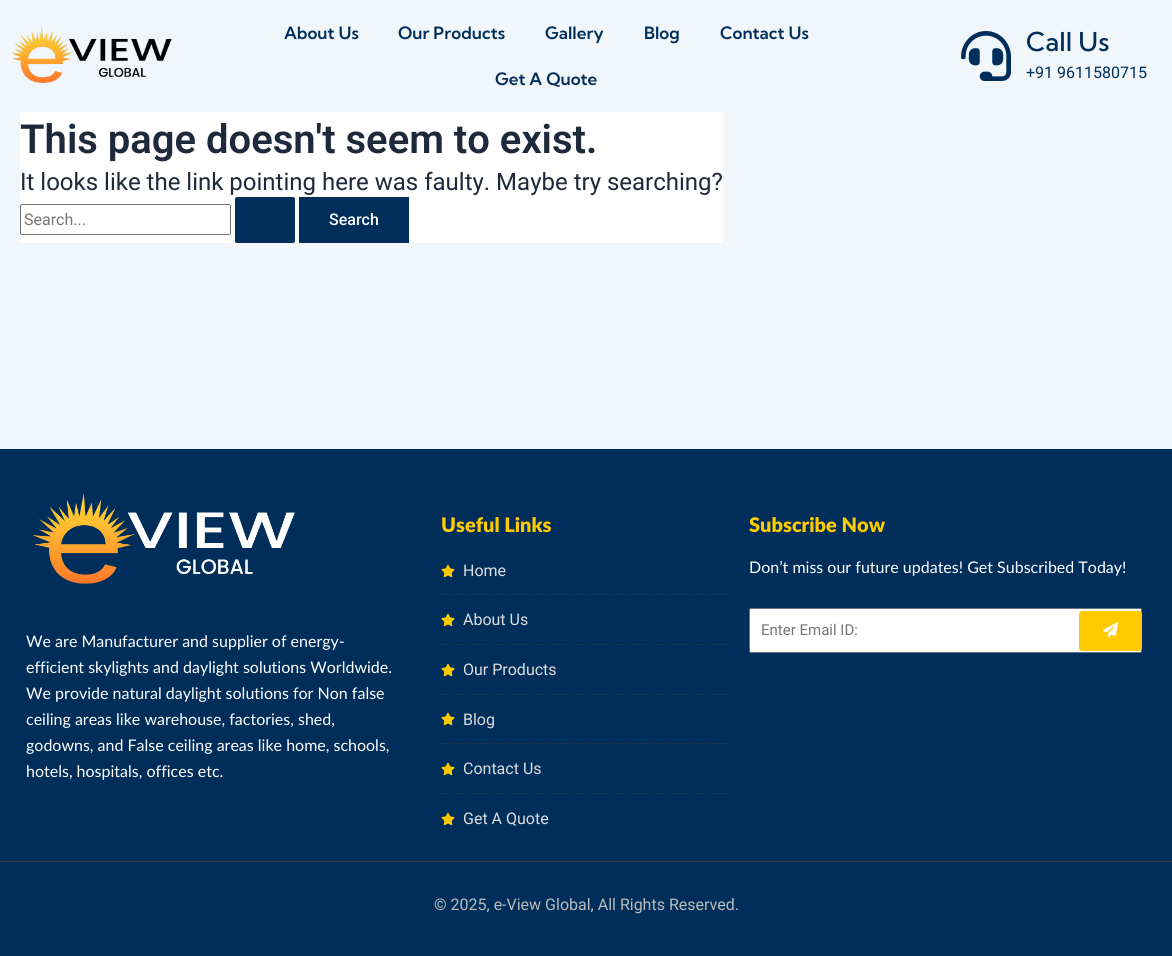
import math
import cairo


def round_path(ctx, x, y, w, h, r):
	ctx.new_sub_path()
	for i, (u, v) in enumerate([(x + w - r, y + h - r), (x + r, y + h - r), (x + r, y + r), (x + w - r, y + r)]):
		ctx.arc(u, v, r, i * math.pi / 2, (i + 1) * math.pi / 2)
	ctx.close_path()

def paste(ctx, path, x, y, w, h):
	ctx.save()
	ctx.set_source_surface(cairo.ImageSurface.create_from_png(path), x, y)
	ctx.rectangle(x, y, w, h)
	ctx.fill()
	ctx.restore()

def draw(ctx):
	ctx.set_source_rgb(0.941, 0.961, 0.98)
	ctx.paint()
	paste(ctx, 'media/1.png', 11, 27, 161, 56)
	ctx.select_font_face('Kumbh Sans SemiBold')
	ctx.set_font_size(17)
	ctx.set_source_rgb(0, 0.18, 0.357)
	for x, y, s in [
		(284, 39, 'About Us'),
		(398, 39, 'Our Products'),
		(545, 39, 'Gallery'),
		(644, 39, 'Blog'),
		(720, 39, 'Contact Us'),
		(495, 85, 'Get A Quote'),
	]:
		ctx.move_to(x, y)
		ctx.show_text(s)
	paste(ctx, 'media/2.png', 961, 31, 50, 50)
	ctx.select_font_face('Kumbh Sans Medium')
	ctx.set_font_size(26)
	ctx.move_to(1026, 51)
	ctx.show_text('Call Us')
	ctx.select_font_face('Roboto')
	ctx.set_font_size(16)
	ctx.move_to(1026, 78)
	ctx.show_text('+91 9611580715')
	ctx.set_source_rgb(1, 1, 1)
	ctx.rectangle(20, 112, 703, 131)
	ctx.fill()
	ctx.select_font_face('Roboto SemiBold')
	ctx.set_font_size(40)
	ctx.set_source_rgb(0.118, 0.161, 0.231)
	ctx.move_to(20, 153)
	ctx.show_text('This page doesn\'t seem to exist.')
	ctx.select_font_face('Roboto')
	ctx.set_font_size(24)
	ctx.move_to(20, 190)
	ctx.show_text('It looks like the link pointing here was faulty. Maybe try searching?')
	round_path(ctx, 20.5, 204.5, 210, 30, 1.5)
	ctx.set_source_rgb(0.463, 0.463, 0.463)
	ctx.set_line_width(1)
	ctx.stroke()
	ctx.set_font_size(16)
	ctx.set_source_rgb(0.459, 0.459, 0.459)
	ctx.move_to(24, 225)
	ctx.show_text('Search...')
	ctx.set_source_rgb(0, 0.18, 0.357)
	round_path(ctx, 235, 197, 60, 46, 2)
	ctx.fill()
	ctx.rectangle(299, 197, 110, 46)
	ctx.fill()
	ctx.select_font_face('Roboto Medium')
	ctx.set_source_rgb(1, 1, 1)
	ctx.move_to(329, 225)
	ctx.show_text('Search')
	ctx.set_source_rgb(0, 0.18, 0.357)
	ctx.rectangle(0, 449, 1172, 412)
	ctx.fill()
	ctx.select_font_face('Lato ExtraBold')
	ctx.set_font_size(20)
	ctx.set_source_rgb(1, 0.792, 0)
	ctx.move_to(441, 532)
	ctx.show_text('Useful Links')
	paste(ctx, 'media/3.png', 441, 564, 14, 14)
	ctx.select_font_face('Roboto')
	ctx.set_font_size(16)
	ctx.set_source_rgb(0.867, 0.867, 0.867)
	ctx.move_to(463, 576)
	ctx.show_text('Home')
	ctx.new_path()
	ctx.move_to(441, 594.5)
	ctx.line_to(729, 594.5)
	ctx.set_source_rgb(0.157, 0.192, 0.314)
	ctx.set_dash([3, 2])
	ctx.stroke()
	paste(ctx, 'media/3.png', 441, 613, 14, 14)
	ctx.set_source_rgb(0.867, 0.867, 0.867)
	ctx.move_to(463, 625)
	ctx.show_text('About Us')
	ctx.new_path()
	ctx.move_to(441, 644.5)
	ctx.line_to(729, 644.5)
	ctx.set_source_rgb(0.157, 0.192, 0.314)
	ctx.stroke()
	paste(ctx, 'media/3.png', 441, 663, 14, 14)
	ctx.set_source_rgb(0.867, 0.867, 0.867)
	ctx.move_to(463, 675)
	ctx.show_text('Our Products')
	ctx.new_path()
	ctx.move_to(441, 694.5)
	ctx.line_to(729, 694.5)
	ctx.set_source_rgb(0.157, 0.192, 0.314)
	ctx.stroke()
	paste(ctx, 'media/3.png', 441, 712, 14, 14)
	ctx.set_source_rgb(0.867, 0.867, 0.867)
	ctx.move_to(463, 725)
	ctx.show_text('Blog')
	ctx.new_path()
	ctx.move_to(441, 743.5)
	ctx.line_to(729, 743.5)
	ctx.set_source_rgb(0.157, 0.192, 0.314)
	ctx.stroke()
	paste(ctx, 'media/3.png', 441, 762, 14, 14)
	ctx.set_source_rgb(0.867, 0.867, 0.867)
	ctx.move_to(463, 774)
	ctx.show_text('Contact Us')
	ctx.new_path()
	ctx.move_to(441, 793.5)
	ctx.line_to(729, 793.5)
	ctx.set_source_rgb(0.157, 0.192, 0.314)
	ctx.stroke()
	paste(ctx, 'media/3.png', 441, 812, 14, 14)
	ctx.set_source_rgb(0.867, 0.867, 0.867)
	ctx.move_to(463, 824)
	ctx.show_text('Get A Quote')
	ctx.select_font_face('Lato ExtraBold')
	ctx.set_font_size(20)
	ctx.set_source_rgb(1, 0.792, 0)
	ctx.move_to(749, 532)
	ctx.show_text('Subscribe Now')
	ctx.select_font_face('Lato')
	ctx.set_font_size(16)
	ctx.set_source_rgb(1, 1, 1)
	ctx.move_to(749, 573)
	ctx.show_text('Don’t miss our future updates! Get Subscribed Today!')
	round_path(ctx, 749.5, 608.5, 392, 44, 1.5)
	ctx.fill_preserve()
	ctx.set_source_rgb(0.412, 0.447, 0.49)
	ctx.set_dash([])
	ctx.stroke()
	ctx.select_font_face('Roboto')
	ctx.set_font_size(15)
	ctx.set_source_rgb(0.459, 0.459, 0.459)
	ctx.move_to(761, 635)
	ctx.show_text('Enter Email ID:')
	ctx.set_source_rgb(1, 0.792, 0)
	round_path(ctx, 1079, 611, 63, 40, 3)
	ctx.fill()
	paste(ctx, 'media/4.png', 1103, 622, 15, 15)
	paste(ctx, 'media/5.png', 33, 493, 262, 91)
	ctx.select_font_face('Lato')
	ctx.set_font_size(16)
	ctx.set_source_rgb(1, 1, 1)
	for x, y, s in [
		(26, 647, 'We are Manufacturer and supplier of energy-'),
		(26, 673, 'efficient skylights and daylight solutions Worldwide.'),
		(26, 699, 'We provide natural daylight solutions for Non false'),
		(26, 725, 'ceiling areas like warehouse, factories, shed,'),
		(26, 751, 'godowns, and False ceiling areas like home, schools,'),
		(26, 777, 'hotels, hospitals, offices etc.'),
	]:
		ctx.move_to(x, y)
		ctx.show_text(s)
	ctx.set_source_rgb(0, 0.18, 0.357)
	ctx.rectangle(0, 862, 1172, 94)
	ctx.fill()
	ctx.set_source_rgb(0.247, 0.247, 0.247)
	ctx.rectangle(0, 861, 1172, 1)
	ctx.fill()
	ctx.select_font_face('Roboto')
	ctx.set_source_rgb(0.733, 0.733, 0.733)
	ctx.move_to(434, 910)
	ctx.show_text('© 2025, e-View Global, All Rights Reserved.')


surface = cairo.ImageSurface(cairo.FORMAT_RGB24, 1172, 956)
ctx = cairo.Context(surface)
options = cairo.FontOptions()
options.set_hint_metrics(cairo.HINT_METRICS_OFF)
options.set_hint_style(cairo.HINT_STYLE_NONE)
ctx.set_font_options(options)
ctx.set_miter_limit(4)
draw(ctx)
surface.write_to_png('image.png')
